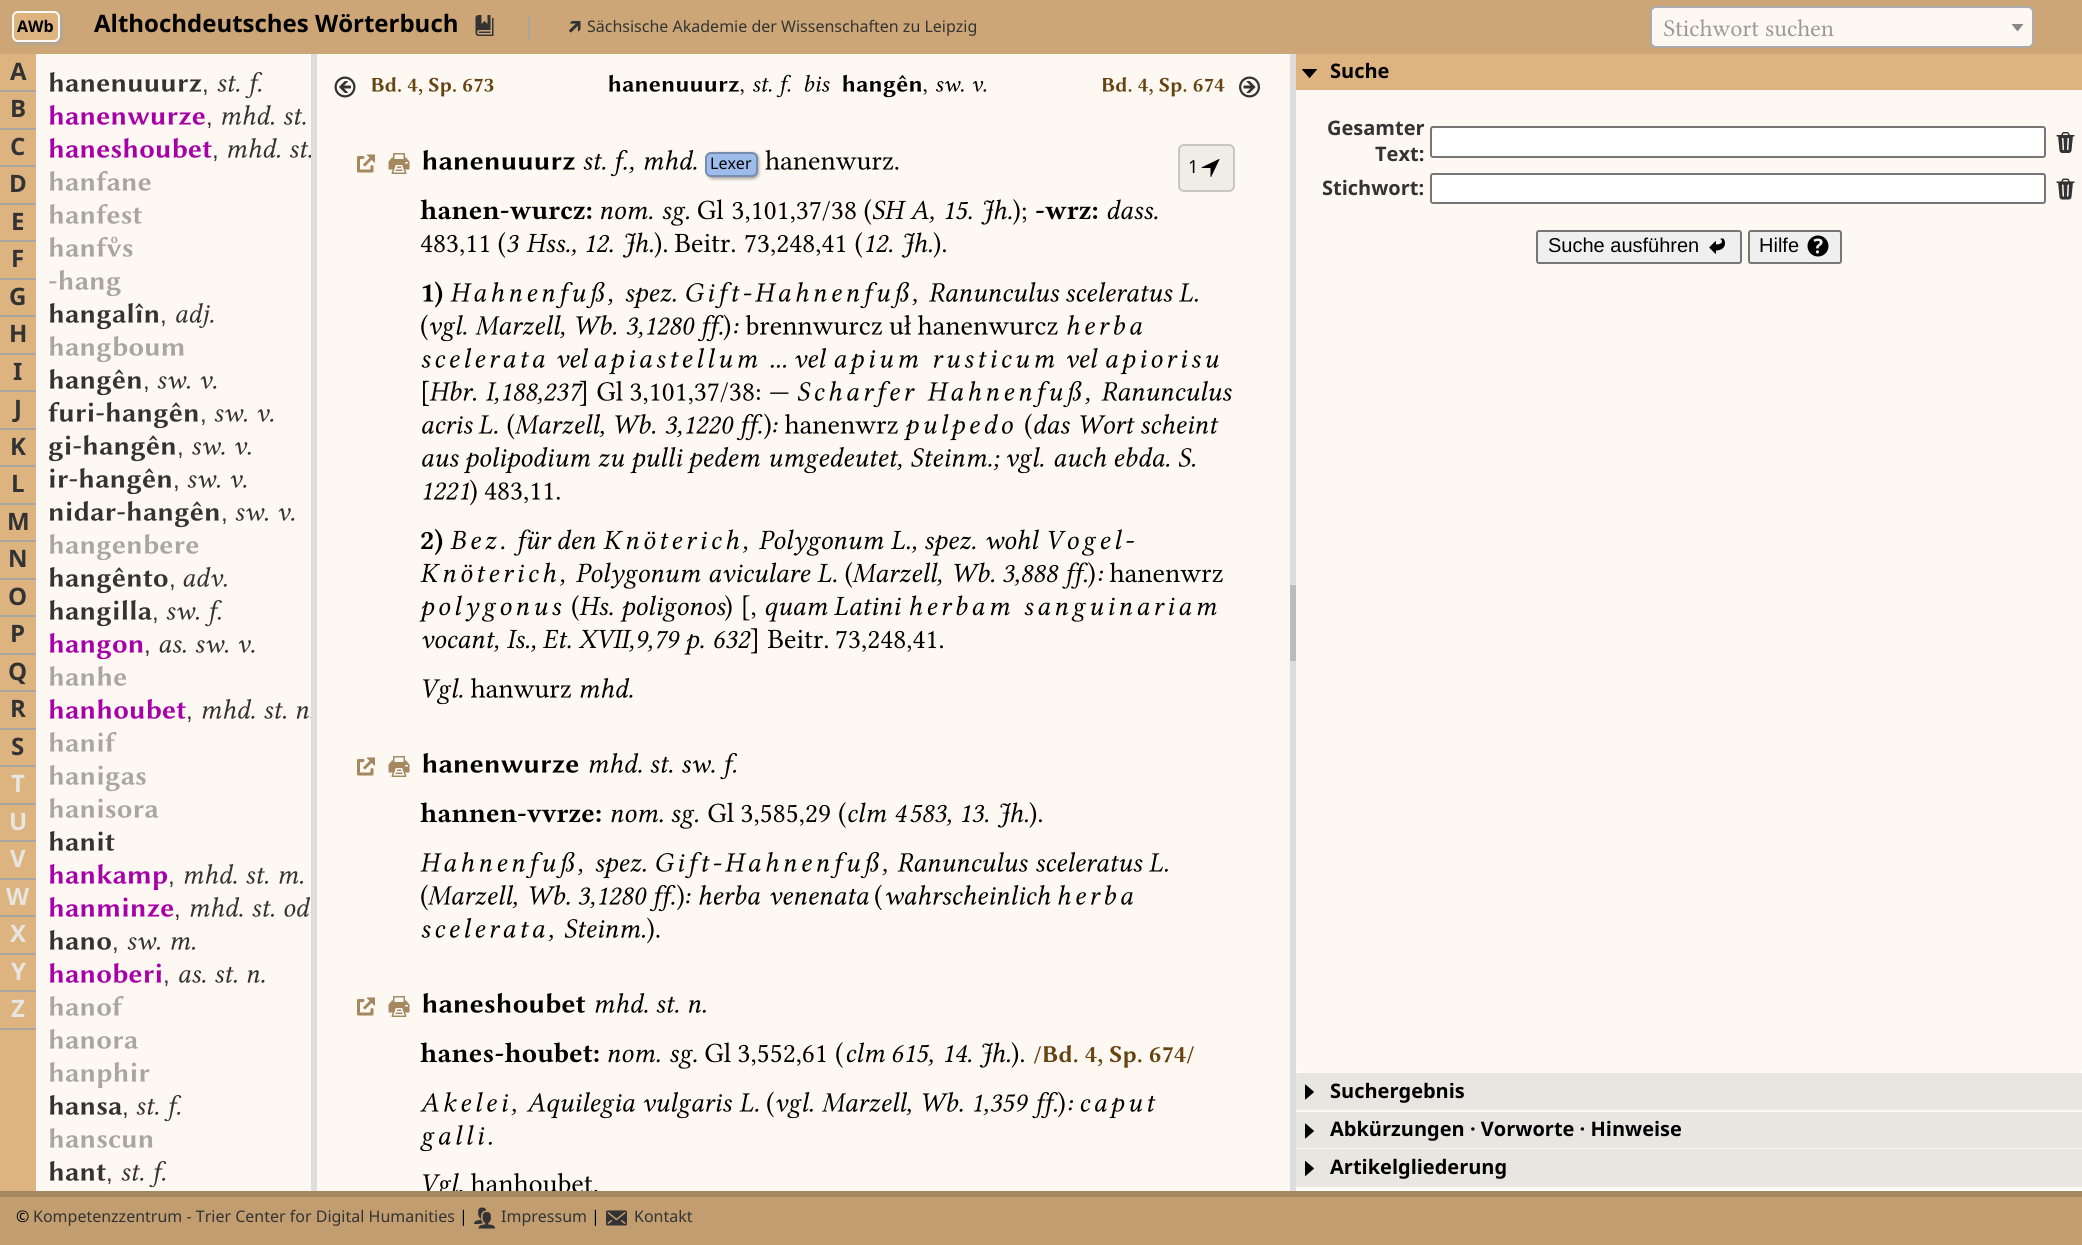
import math
import cairo


def round_path(ctx, x, y, w, h, r):
	ctx.new_sub_path()
	for i, (u, v) in enumerate([(x + w - r, y + h - r), (x + r, y + h - r), (x + r, y + r), (x + w - r, y + r)]):
		ctx.arc(u, v, r, i * math.pi / 2, (i + 1) * math.pi / 2)
	ctx.close_path()

def blur_box(ctx, x, y, w, h, r, blur, alpha):
	ctx.push_group_with_content(cairo.CONTENT_ALPHA)
	ctx.set_operator(cairo.OPERATOR_SOURCE)
	for i in range(15, -16, -2):
		e = blur * i / 6
		if min(w, h) + 2 * e > 0:
			ctx.set_source_rgba(0, 0, 0, alpha * math.erfc((i - 1) / 8.5) / 2)
			round_path(ctx, x - e, y - e, w + 2 * e, h + 2 * e, max(0, min(r + e + blur * .6, min(w, h) / 2 + e)))
			ctx.fill()
	ctx.mask(ctx.pop_group())

def paste(ctx, path, x, y, w, h):
	ctx.save()
	ctx.set_source_surface(cairo.ImageSurface.create_from_png(path), x, y)
	ctx.rectangle(x, y, w, h)
	ctx.fill()
	ctx.restore()

def draw(ctx):
	ctx.set_source_rgb(0.8, 0.651, 0.463)
	ctx.paint()
	ctx.set_source_rgb(0.659, 0.651, 0.631)
	blur_box(ctx, 14, 12, 48, 32, 6, 1.5, 1)
	ctx.set_source_rgb(0.867, 0.706, 0.502)
	round_path(ctx, 13, 12, 46, 29, 5)
	ctx.fill_preserve()
	ctx.set_source_rgb(0.992, 0.976, 0.949)
	ctx.stroke()
	ctx.select_font_face('Noto Sans', cairo.FONT_SLANT_NORMAL, cairo.FONT_WEIGHT_BOLD)
	ctx.set_font_size(16)
	ctx.set_source_rgb(0, 0, 0)
	ctx.move_to(17, 32)
	ctx.show_text('AWb')
	ctx.set_font_size(24)
	ctx.move_to(94, 32)
	ctx.show_text('Althochdeutsches Wörterbuch')
	paste(ctx, 'media/1.png', 475, 15, 19, 21)
	ctx.set_source_rgb(0.659, 0.651, 0.631)
	ctx.rectangle(528, 15, 2, 26)
	ctx.fill()
	paste(ctx, 'media/2.png', 569, 21, 12, 12)
	ctx.select_font_face('Noto Sans')
	ctx.set_font_size(16)
	ctx.set_source_rgb(0.2, 0.2, 0.2)
	ctx.move_to(587, 32)
	ctx.show_text('Sächsische Akademie der Wissenschaften zu Leipzig')
	ctx.set_source_rgb(0.992, 0.976, 0.949)
	round_path(ctx, 1651, 7, 382, 40, 5)
	ctx.fill_preserve()
	ctx.set_source_rgb(0.667, 0.667, 0.667)
	ctx.stroke()
	paste(ctx, 'media/3.png', 1664, 19, 170, 18)
	ctx.set_source_rgb(0.533, 0.533, 0.533)
	ctx.new_path()
	ctx.move_to(2011.5, 24)
	ctx.line_to(2023.5, 24)
	ctx.line_to(2017.5, 31.5)
	ctx.close_path()
	ctx.fill()
	ctx.set_source_rgb(0.867, 0.867, 0.867)
	ctx.rectangle(311, 54, 6, 1137)
	ctx.rectangle(1290, 54, 6, 1137)
	ctx.fill()
	ctx.set_source_rgb(0.733, 0.733, 0.733)
	ctx.rectangle(1290, 585, 6, 76)
	ctx.fill()
	ctx.set_source_rgb(0.867, 0.706, 0.502)
	ctx.rectangle(0, 54, 36, 1137)
	ctx.fill()
	ctx.set_source_rgb(0.659, 0.651, 0.631)
	ctx.rectangle(0, 90, 36, 2)
	ctx.fill()
	ctx.select_font_face('Noto Sans', cairo.FONT_SLANT_NORMAL, cairo.FONT_WEIGHT_BOLD)
	ctx.set_font_size(24)
	ctx.set_source_rgb(0.2, 0.2, 0.2)
	ctx.move_to(10, 80)
	ctx.show_text('A')
	ctx.set_source_rgb(0.659, 0.651, 0.631)
	ctx.rectangle(0, 128, 36, 2)
	ctx.fill()
	ctx.set_source_rgb(0.2, 0.2, 0.2)
	ctx.move_to(10, 117)
	ctx.show_text('B')
	ctx.set_source_rgb(0.659, 0.651, 0.631)
	ctx.rectangle(0, 165, 36, 2)
	ctx.fill()
	ctx.set_source_rgb(0.2, 0.2, 0.2)
	ctx.move_to(10, 155)
	ctx.show_text('C')
	ctx.set_source_rgb(0.659, 0.651, 0.631)
	ctx.rectangle(0, 203, 36, 2)
	ctx.fill()
	ctx.set_source_rgb(0.2, 0.2, 0.2)
	ctx.move_to(9, 192)
	ctx.show_text('D')
	ctx.set_source_rgb(0.659, 0.651, 0.631)
	ctx.rectangle(0, 240, 36, 2)
	ctx.fill()
	ctx.set_source_rgb(0.2, 0.2, 0.2)
	ctx.move_to(11, 230)
	ctx.show_text('E')
	ctx.set_source_rgb(0.659, 0.651, 0.631)
	ctx.rectangle(0, 278, 36, 2)
	ctx.fill()
	ctx.set_source_rgb(0.2, 0.2, 0.2)
	ctx.move_to(11, 267)
	ctx.show_text('F')
	ctx.set_source_rgb(0.659, 0.651, 0.631)
	ctx.rectangle(0, 315, 36, 2)
	ctx.fill()
	ctx.set_source_rgb(0.2, 0.2, 0.2)
	ctx.move_to(9, 305)
	ctx.show_text('G')
	ctx.set_source_rgb(0.659, 0.651, 0.631)
	ctx.rectangle(0, 353, 36, 2)
	ctx.fill()
	ctx.set_source_rgb(0.2, 0.2, 0.2)
	ctx.move_to(9, 342)
	ctx.show_text('H')
	ctx.set_source_rgb(0.659, 0.651, 0.631)
	ctx.rectangle(0, 390, 36, 2)
	ctx.fill()
	ctx.set_source_rgb(0.2, 0.2, 0.2)
	ctx.move_to(13, 380)
	ctx.show_text('I')
	ctx.set_source_rgb(0.659, 0.651, 0.631)
	ctx.rectangle(0, 428, 36, 2)
	ctx.fill()
	ctx.set_source_rgb(0.2, 0.2, 0.2)
	ctx.move_to(14, 417)
	ctx.show_text('J')
	ctx.set_source_rgb(0.659, 0.651, 0.631)
	ctx.rectangle(0, 465, 36, 2)
	ctx.fill()
	ctx.set_source_rgb(0.2, 0.2, 0.2)
	ctx.move_to(10, 455)
	ctx.show_text('K')
	ctx.set_source_rgb(0.659, 0.651, 0.631)
	ctx.rectangle(0, 503, 36, 2)
	ctx.fill()
	ctx.set_source_rgb(0.2, 0.2, 0.2)
	ctx.move_to(11, 492)
	ctx.show_text('L')
	ctx.set_source_rgb(0.659, 0.651, 0.631)
	ctx.rectangle(0, 540, 36, 2)
	ctx.fill()
	ctx.set_source_rgb(0.2, 0.2, 0.2)
	ctx.move_to(7, 530)
	ctx.show_text('M')
	ctx.set_source_rgb(0.659, 0.651, 0.631)
	ctx.rectangle(0, 578, 36, 2)
	ctx.fill()
	ctx.set_source_rgb(0.2, 0.2, 0.2)
	ctx.move_to(8, 567)
	ctx.show_text('N')
	ctx.set_source_rgb(0.659, 0.651, 0.631)
	ctx.rectangle(0, 615, 36, 2)
	ctx.fill()
	ctx.set_source_rgb(0.2, 0.2, 0.2)
	ctx.move_to(8, 605)
	ctx.show_text('O')
	ctx.set_source_rgb(0.659, 0.651, 0.631)
	ctx.rectangle(0, 653, 36, 2)
	ctx.fill()
	ctx.set_source_rgb(0.2, 0.2, 0.2)
	ctx.move_to(10, 642)
	ctx.show_text('P')
	ctx.set_source_rgb(0.659, 0.651, 0.631)
	ctx.rectangle(0, 690, 36, 2)
	ctx.fill()
	ctx.set_source_rgb(0.2, 0.2, 0.2)
	ctx.move_to(8, 680)
	ctx.show_text('Q')
	ctx.set_source_rgb(0.659, 0.651, 0.631)
	ctx.rectangle(0, 728, 36, 2)
	ctx.fill()
	ctx.set_source_rgb(0.2, 0.2, 0.2)
	ctx.move_to(10, 717)
	ctx.show_text('R')
	ctx.set_source_rgb(0.659, 0.651, 0.631)
	ctx.rectangle(0, 765, 36, 2)
	ctx.fill()
	ctx.set_source_rgb(0.2, 0.2, 0.2)
	ctx.move_to(11, 755)
	ctx.show_text('S')
	ctx.set_source_rgb(0.659, 0.651, 0.631)
	ctx.rectangle(0, 803, 36, 2)
	ctx.fill()
	ctx.set_source_rgb(0.91, 0.902, 0.882)
	ctx.move_to(11, 792)
	ctx.show_text('T')
	ctx.set_source_rgb(0.659, 0.651, 0.631)
	ctx.rectangle(0, 840, 36, 2)
	ctx.fill()
	ctx.set_source_rgb(0.91, 0.902, 0.882)
	ctx.move_to(9, 830)
	ctx.show_text('U')
	ctx.set_source_rgb(0.659, 0.651, 0.631)
	ctx.rectangle(0, 878, 36, 2)
	ctx.fill()
	ctx.set_source_rgb(0.91, 0.902, 0.882)
	ctx.move_to(10, 867)
	ctx.show_text('V')
	ctx.set_source_rgb(0.659, 0.651, 0.631)
	ctx.rectangle(0, 915, 36, 2)
	ctx.fill()
	ctx.set_source_rgb(0.91, 0.902, 0.882)
	ctx.move_to(6, 905)
	ctx.show_text('W')
	ctx.set_source_rgb(0.659, 0.651, 0.631)
	ctx.rectangle(0, 953, 36, 2)
	ctx.fill()
	ctx.set_source_rgb(0.91, 0.902, 0.882)
	ctx.move_to(10, 942)
	ctx.show_text('X')
	ctx.set_source_rgb(0.659, 0.651, 0.631)
	ctx.rectangle(0, 990, 36, 2)
	ctx.fill()
	ctx.set_source_rgb(0.91, 0.902, 0.882)
	ctx.move_to(11, 980)
	ctx.show_text('Y')
	ctx.set_source_rgb(0.659, 0.651, 0.631)
	ctx.rectangle(0, 1028, 36, 2)
	ctx.fill()
	ctx.set_source_rgb(0.91, 0.902, 0.882)
	ctx.move_to(11, 1017)
	ctx.show_text('Z')
	ctx.set_source_rgb(0.992, 0.976, 0.949)
	ctx.rectangle(36, 54, 275, 1137)
	ctx.fill()
	paste(ctx, 'media/4.png', 50, 72, 152, 20)
	ctx.select_font_face('Liberation Sans')
	ctx.set_source_rgb(0.2, 0.2, 0.2)
	ctx.move_to(202, 92)
	ctx.show_text(',')
	paste(ctx, 'media/5.png', 217, 72, 46, 27)
	paste(ctx, 'media/6.png', 50, 105, 155, 20)
	ctx.move_to(206, 125)
	ctx.show_text(',')
	paste(ctx, 'media/7.png', 222, 105, 84, 20)
	paste(ctx, 'media/8.png', 50, 138, 162, 20)
	ctx.move_to(212, 158)
	ctx.show_text(',')
	paste(ctx, 'media/9.png', 228, 138, 83, 20)
	paste(ctx, 'media/10.png', 50, 171, 101, 20)
	paste(ctx, 'media/11.png', 50, 204, 92, 20)
	paste(ctx, 'media/12.png', 50, 236, 83, 21)
	paste(ctx, 'media/13.png', 49, 270, 72, 27)
	paste(ctx, 'media/14.png', 50, 303, 109, 27)
	ctx.move_to(160, 323)
	ctx.show_text(',')
	paste(ctx, 'media/15.png', 176, 303, 38, 25)
	paste(ctx, 'media/16.png', 50, 336, 134, 27)
	paste(ctx, 'media/17.png', 50, 369, 91, 27)
	ctx.move_to(143, 389)
	ctx.show_text(',')
	paste(ctx, 'media/18.png', 157, 376, 60, 13)
	paste(ctx, 'media/19.png', 48, 401, 150, 28)
	ctx.move_to(200, 422)
	ctx.show_text(',')
	paste(ctx, 'media/18.png', 214, 409, 60, 13)
	paste(ctx, 'media/20.png', 48, 435, 127, 27)
	ctx.move_to(177, 455)
	ctx.show_text(',')
	paste(ctx, 'media/21.png', 192, 442, 59, 13)
	paste(ctx, 'media/22.png', 50, 468, 121, 27)
	ctx.move_to(173, 488)
	ctx.show_text(',')
	paste(ctx, 'media/18.png', 187, 475, 60, 13)
	paste(ctx, 'media/23.png', 49, 501, 170, 27)
	ctx.move_to(221, 521)
	ctx.show_text(',')
	paste(ctx, 'media/18.png', 235, 508, 60, 13)
	paste(ctx, 'media/24.png', 50, 534, 149, 27)
	paste(ctx, 'media/25.png', 50, 567, 118, 27)
	ctx.move_to(169, 587)
	ctx.show_text(',')
	paste(ctx, 'media/26.png', 183, 567, 44, 20)
	paste(ctx, 'media/27.png', 50, 600, 102, 27)
	ctx.move_to(152, 620)
	ctx.show_text(',')
	paste(ctx, 'media/28.png', 166, 600, 56, 27)
	paste(ctx, 'media/29.png', 50, 633, 93, 27)
	ctx.move_to(144, 653)
	ctx.show_text(',')
	paste(ctx, 'media/30.png', 159, 640, 96, 13)
	paste(ctx, 'media/31.png', 50, 666, 77, 20)
	paste(ctx, 'media/32.png', 50, 699, 136, 20)
	ctx.move_to(186, 719)
	ctx.show_text(',')
	paste(ctx, 'media/33.png', 202, 699, 109, 20)
	paste(ctx, 'media/34.png', 50, 732, 67, 20)
	paste(ctx, 'media/35.png', 50, 765, 96, 27)
	paste(ctx, 'media/36.png', 50, 798, 109, 20)
	paste(ctx, 'media/37.png', 50, 831, 65, 20)
	paste(ctx, 'media/38.png', 50, 864, 118, 27)
	ctx.move_to(168, 884)
	ctx.show_text(',')
	paste(ctx, 'media/39.png', 184, 864, 119, 20)
	paste(ctx, 'media/40.png', 50, 897, 124, 20)
	ctx.move_to(174, 917)
	ctx.show_text(',')
	paste(ctx, 'media/41.png', 190, 897, 121, 20)
	paste(ctx, 'media/42.png', 50, 930, 61, 20)
	ctx.move_to(112, 950)
	ctx.show_text(',')
	paste(ctx, 'media/43.png', 127, 937, 68, 13)
	paste(ctx, 'media/44.png', 50, 963, 111, 20)
	ctx.move_to(163, 983)
	ctx.show_text(',')
	paste(ctx, 'media/45.png', 179, 966, 86, 17)
	paste(ctx, 'media/46.png', 50, 996, 74, 20)
	paste(ctx, 'media/47.png', 50, 1029, 88, 20)
	paste(ctx, 'media/48.png', 50, 1062, 100, 27)
	paste(ctx, 'media/49.png', 50, 1095, 73, 20)
	ctx.move_to(122, 1115)
	ctx.show_text(',')
	paste(ctx, 'media/5.png', 136, 1095, 46, 27)
	paste(ctx, 'media/50.png', 50, 1128, 103, 20)
	paste(ctx, 'media/51.png', 50, 1161, 56, 20)
	ctx.move_to(106, 1181)
	ctx.show_text(',')
	paste(ctx, 'media/5.png', 121, 1161, 46, 27)
	ctx.set_source_rgb(0.992, 0.976, 0.949)
	ctx.rectangle(317, 54, 973, 1137)
	ctx.fill()
	paste(ctx, 'media/52.png', 334, 76, 22, 22)
	paste(ctx, 'media/53.png', 372, 77, 122, 20)
	paste(ctx, 'media/54.png', 609, 74, 130, 18)
	paste(ctx, 'media/55.png', 740, 89, 4, 6)
	paste(ctx, 'media/56.png', 753, 74, 39, 24)
	paste(ctx, 'media/57.png', 804, 74, 26, 18)
	paste(ctx, 'media/58.png', 843, 74, 78, 24)
	paste(ctx, 'media/55.png', 923, 89, 4, 6)
	paste(ctx, 'media/59.png', 936, 81, 51, 11)
	paste(ctx, 'media/60.png', 1102, 77, 123, 20)
	paste(ctx, 'media/61.png', 1239, 76, 21, 22)
	paste(ctx, 'media/62.png', 357, 154, 18, 19)
	paste(ctx, 'media/63.png', 388, 153, 22, 21)
	paste(ctx, 'media/64.png', 423, 150, 152, 20)
	paste(ctx, 'media/65.png', 583, 153, 23, 17)
	paste(ctx, 'media/66.png', 610, 150, 18, 27)
	paste(ctx, 'media/67.png', 629, 166, 5, 8)
	paste(ctx, 'media/68.png', 644, 150, 53, 20)
	ctx.set_source_rgb(0.659, 0.651, 0.631)
	blur_box(ctx, 707, 153, 52, 26, 6, 1.5, 1)
	ctx.set_source_rgb(0.616, 0.737, 0.918)
	round_path(ctx, 706, 153, 51, 23, 5)
	ctx.fill_preserve()
	ctx.set_source_rgb(0.459, 0.553, 0.686)
	ctx.stroke()
	ctx.select_font_face('Noto Sans')
	ctx.set_font_size(16)
	ctx.set_source_rgb(0, 0, 0)
	ctx.move_to(710, 169)
	ctx.show_text('Lexer')
	paste(ctx, 'media/69.png', 765, 150, 134, 20)
	ctx.set_source_rgb(0.941, 0.929, 0.902)
	round_path(ctx, 1179, 145, 55, 46, 5)
	ctx.fill_preserve()
	ctx.set_source_rgb(0.784, 0.776, 0.757)
	ctx.stroke()
	ctx.set_font_size(18)
	ctx.set_source_rgb(0, 0, 0)
	ctx.move_to(1188, 173)
	ctx.show_text('1')
	paste(ctx, 'media/70.png', 1201, 159, 19, 18)
	paste(ctx, 'media/71.png', 420, 199, 172, 21)
	paste(ctx, 'media/72.png', 601, 206, 52, 14)
	paste(ctx, 'media/73.png', 662, 206, 27, 20)
	paste(ctx, 'media/74.png', 698, 199, 26, 21)
	paste(ctx, 'media/75.png', 732, 200, 124, 23)
	paste(ctx, 'media/76.png', 864, 199, 8, 26)
	paste(ctx, 'media/77.png', 872, 200, 34, 20)
	paste(ctx, 'media/78.png', 910, 200, 24, 23)
	paste(ctx, 'media/79.png', 945, 201, 27, 19)
	paste(ctx, 'media/80.png', 981, 199, 31, 26)
	paste(ctx, 'media/81.png', 1013, 199, 14, 26)
	paste(ctx, 'media/82.png', 1036, 206, 62, 14)
	paste(ctx, 'media/83.png', 1107, 199, 51, 21)
	paste(ctx, 'media/84.png', 420, 234, 69, 22)
	paste(ctx, 'media/76.png', 498, 232, 8, 26)
	paste(ctx, 'media/85.png', 507, 234, 12, 19)
	paste(ctx, 'media/86.png', 526, 233, 50, 23)
	paste(ctx, 'media/87.png', 586, 234, 27, 19)
	paste(ctx, 'media/88.png', 622, 232, 31, 26)
	paste(ctx, 'media/89.png', 654, 232, 13, 26)
	paste(ctx, 'media/90.png', 674, 233, 61, 20)
	paste(ctx, 'media/91.png', 745, 234, 100, 22)
	paste(ctx, 'media/76.png', 855, 232, 8, 26)
	paste(ctx, 'media/92.png', 866, 234, 27, 19)
	paste(ctx, 'media/88.png', 901, 232, 31, 26)
	paste(ctx, 'media/89.png', 933, 232, 13, 26)
	paste(ctx, 'media/93.png', 422, 281, 21, 27)
	paste(ctx, 'media/94.png', 450, 282, 163, 27)
	paste(ctx, 'media/95.png', 625, 287, 51, 22)
	paste(ctx, 'media/96.png', 686, 281, 231, 28)
	paste(ctx, 'media/97.png', 929, 282, 131, 20)
	paste(ctx, 'media/98.png', 1066, 282, 107, 20)
	paste(ctx, 'media/99.png', 1179, 283, 19, 19)
	paste(ctx, 'media/100.png', 421, 314, 7, 27)
	paste(ctx, 'media/101.png', 429, 315, 38, 27)
	paste(ctx, 'media/102.png', 475, 315, 90, 24)
	paste(ctx, 'media/103.png', 576, 315, 41, 20)
	paste(ctx, 'media/104.png', 626, 317, 69, 22)
	paste(ctx, 'media/105.png', 697, 315, 27, 27)
	paste(ctx, 'media/106.png', 723, 314, 8, 27)
	paste(ctx, 'media/107.png', 734, 323, 5, 11)
	paste(ctx, 'media/108.png', 745, 315, 137, 20)
	paste(ctx, 'media/109.png', 889, 315, 22, 20)
	paste(ctx, 'media/110.png', 917, 315, 141, 20)
	paste(ctx, 'media/111.png', 1067, 315, 75, 20)
	paste(ctx, 'media/112.png', 421, 348, 124, 20)
	paste(ctx, 'media/113.png', 557, 348, 32, 20)
	paste(ctx, 'media/114.png', 594, 348, 164, 27)
	paste(ctx, 'media/115.png', 770, 364, 16, 4)
	paste(ctx, 'media/113.png', 795, 348, 32, 20)
	paste(ctx, 'media/116.png', 834, 350, 84, 25)
	paste(ctx, 'media/117.png', 934, 350, 121, 18)
	paste(ctx, 'media/118.png', 1066, 348, 32, 20)
	paste(ctx, 'media/119.png', 1106, 350, 113, 25)
	paste(ctx, 'media/120.png', 423, 380, 6, 26)
	paste(ctx, 'media/121.png', 429, 381, 47, 20)
	paste(ctx, 'media/127.png', 486, 382, 97, 23)
	paste(ctx, 'media/122.png', 579, 380, 7, 26)
	paste(ctx, 'media/123.png', 597, 381, 26, 20)
	paste(ctx, 'media/124.png', 797, 381, 118, 27)
	paste(ctx, 'media/125.png', 927, 381, 155, 27)
	paste(ctx, 'media/126.png', 1101, 381, 131, 20)
	paste(ctx, 'media/128.png', 630, 382, 130, 23)
	paste(ctx, 'media/129.png', 770, 392, 19, 2)
	paste(ctx, 'media/67.png', 1085, 397, 5, 8)
	paste(ctx, 'media/130.png', 422, 416, 51, 18)
	paste(ctx, 'media/131.png', 478, 415, 20, 19)
	paste(ctx, 'media/132.png', 507, 413, 8, 27)
	paste(ctx, 'media/133.png', 515, 414, 89, 24)
	paste(ctx, 'media/103.png', 615, 414, 41, 20)
	paste(ctx, 'media/134.png', 665, 416, 69, 22)
	paste(ctx, 'media/105.png', 736, 414, 27, 27)
	paste(ctx, 'media/135.png', 764, 413, 7, 27)
	paste(ctx, 'media/107.png', 773, 422, 5, 11)
	paste(ctx, 'media/136.png', 784, 414, 114, 20)
	paste(ctx, 'media/137.png', 904, 414, 109, 27)
	paste(ctx, 'media/100.png', 1025, 413, 7, 27)
	paste(ctx, 'media/138.png', 1034, 414, 36, 20)
	paste(ctx, 'media/139.png', 1080, 415, 55, 19)
	paste(ctx, 'media/140.png', 1141, 414, 78, 20)
	paste(ctx, 'media/141.png', 422, 454, 37, 13)
	paste(ctx, 'media/142.png', 464, 447, 126, 27)
	paste(ctx, 'media/143.png', 598, 454, 27, 13)
	paste(ctx, 'media/144.png', 630, 447, 53, 27)
	paste(ctx, 'media/145.png', 687, 447, 73, 27)
	paste(ctx, 'media/146.png', 770, 447, 132, 27)
	paste(ctx, 'media/147.png', 911, 448, 89, 23)
	paste(ctx, 'media/101.png', 1006, 447, 38, 27)
	paste(ctx, 'media/148.png', 1054, 447, 53, 20)
	paste(ctx, 'media/149.png', 1114, 447, 56, 20)
	paste(ctx, 'media/150.png', 1178, 448, 17, 19)
	paste(ctx, 'media/151.png', 423, 482, 46, 18)
	paste(ctx, 'media/135.png', 470, 479, 7, 27)
	paste(ctx, 'media/152.png', 484, 482, 76, 22)
	paste(ctx, 'media/153.png', 421, 529, 22, 26)
	paste(ctx, 'media/154.png', 450, 530, 55, 20)
	paste(ctx, 'media/155.png', 513, 529, 39, 27)
	paste(ctx, 'media/156.png', 558, 529, 38, 21)
	paste(ctx, 'media/157.png', 603, 529, 145, 24)
	paste(ctx, 'media/158.png', 759, 529, 125, 27)
	paste(ctx, 'media/159.png', 891, 530, 25, 23)
	paste(ctx, 'media/160.png', 925, 535, 51, 21)
	paste(ctx, 'media/161.png', 986, 529, 53, 21)
	paste(ctx, 'media/162.png', 1048, 529, 86, 27)
	paste(ctx, 'media/157.png', 420, 562, 145, 24)
	paste(ctx, 'media/158.png', 576, 562, 125, 27)
	paste(ctx, 'media/163.png', 709, 562, 102, 21)
	paste(ctx, 'media/164.png', 817, 563, 20, 20)
	paste(ctx, 'media/76.png', 845, 562, 8, 26)
	paste(ctx, 'media/165.png', 852, 562, 90, 24)
	paste(ctx, 'media/166.png', 954, 562, 41, 21)
	paste(ctx, 'media/167.png', 1003, 564, 56, 22)
	paste(ctx, 'media/168.png', 1062, 562, 26, 27)
	paste(ctx, 'media/169.png', 1088, 562, 7, 26)
	paste(ctx, 'media/170.png', 1098, 570, 5, 11)
	paste(ctx, 'media/171.png', 1109, 562, 114, 21)
	paste(ctx, 'media/172.png', 419, 595, 143, 27)
	paste(ctx, 'media/173.png', 572, 595, 7, 26)
	paste(ctx, 'media/174.png', 579, 596, 34, 20)
	paste(ctx, 'media/175.png', 620, 595, 106, 27)
	paste(ctx, 'media/176.png', 725, 595, 7, 26)
	paste(ctx, 'media/177.png', 743, 595, 13, 26)
	paste(ctx, 'media/178.png', 765, 602, 63, 20)
	paste(ctx, 'media/179.png', 834, 596, 67, 20)
	paste(ctx, 'media/180.png', 910, 595, 100, 21)
	paste(ctx, 'media/181.png', 1024, 597, 193, 25)
	paste(ctx, 'media/182.png', 422, 632, 77, 20)
	paste(ctx, 'media/183.png', 507, 629, 29, 23)
	paste(ctx, 'media/184.png', 542, 629, 29, 20)
	paste(ctx, 'media/185.png', 578, 629, 102, 23)
	paste(ctx, 'media/186.png', 684, 634, 20, 21)
	paste(ctx, 'media/187.png', 714, 630, 37, 19)
	paste(ctx, 'media/188.png', 750, 628, 7, 26)
	paste(ctx, 'media/90.png', 767, 629, 61, 20)
	paste(ctx, 'media/189.png', 836, 630, 107, 22)
	paste(ctx, 'media/190.png', 423, 678, 40, 27)
	paste(ctx, 'media/191.png', 470, 678, 101, 20)
	paste(ctx, 'media/68.png', 580, 678, 53, 20)
	paste(ctx, 'media/62.png', 357, 757, 18, 19)
	paste(ctx, 'media/63.png', 388, 756, 22, 21)
	paste(ctx, 'media/192.png', 423, 753, 156, 20)
	paste(ctx, 'media/68.png', 589, 753, 53, 20)
	paste(ctx, 'media/65.png', 650, 756, 23, 17)
	paste(ctx, 'media/193.png', 682, 760, 33, 13)
	paste(ctx, 'media/194.png', 720, 753, 18, 27)
	paste(ctx, 'media/195.png', 420, 802, 181, 21)
	paste(ctx, 'media/196.png', 611, 809, 52, 14)
	paste(ctx, 'media/73.png', 671, 809, 27, 20)
	paste(ctx, 'media/197.png', 708, 802, 26, 21)
	paste(ctx, 'media/198.png', 741, 804, 89, 22)
	paste(ctx, 'media/173.png', 839, 802, 7, 26)
	paste(ctx, 'media/199.png', 848, 802, 39, 21)
	paste(ctx, 'media/200.png', 895, 804, 56, 22)
	paste(ctx, 'media/201.png', 962, 804, 27, 19)
	paste(ctx, 'media/88.png', 997, 802, 31, 26)
	paste(ctx, 'media/89.png', 1029, 802, 13, 26)
	paste(ctx, 'media/94.png', 420, 852, 163, 27)
	paste(ctx, 'media/95.png', 595, 857, 51, 22)
	paste(ctx, 'media/96.png', 656, 851, 231, 28)
	paste(ctx, 'media/126.png', 897, 852, 131, 20)
	paste(ctx, 'media/98.png', 1036, 852, 107, 20)
	paste(ctx, 'media/99.png', 1149, 853, 19, 19)
	paste(ctx, 'media/100.png', 421, 884, 7, 27)
	paste(ctx, 'media/133.png', 428, 885, 89, 24)
	paste(ctx, 'media/202.png', 529, 885, 41, 20)
	paste(ctx, 'media/104.png', 578, 887, 69, 22)
	paste(ctx, 'media/105.png', 649, 885, 27, 27)
	paste(ctx, 'media/135.png', 677, 884, 7, 27)
	paste(ctx, 'media/107.png', 686, 893, 5, 11)
	paste(ctx, 'media/203.png', 699, 885, 61, 20)
	paste(ctx, 'media/204.png', 770, 888, 99, 17)
	paste(ctx, 'media/100.png', 875, 884, 7, 27)
	paste(ctx, 'media/205.png', 885, 885, 166, 20)
	paste(ctx, 'media/111.png', 1058, 885, 75, 20)
	paste(ctx, 'media/206.png', 421, 918, 132, 24)
	paste(ctx, 'media/207.png', 564, 919, 81, 19)
	paste(ctx, 'media/208.png', 647, 917, 13, 27)
	paste(ctx, 'media/62.png', 357, 997, 18, 19)
	paste(ctx, 'media/63.png', 388, 996, 22, 21)
	paste(ctx, 'media/209.png', 423, 993, 163, 20)
	paste(ctx, 'media/68.png', 595, 993, 53, 20)
	paste(ctx, 'media/65.png', 656, 996, 23, 17)
	paste(ctx, 'media/210.png', 689, 1000, 17, 13)
	paste(ctx, 'media/211.png', 420, 1042, 179, 21)
	paste(ctx, 'media/196.png', 608, 1049, 52, 14)
	paste(ctx, 'media/212.png', 670, 1049, 27, 20)
	paste(ctx, 'media/197.png', 705, 1042, 26, 21)
	paste(ctx, 'media/213.png', 738, 1044, 88, 22)
	paste(ctx, 'media/173.png', 836, 1042, 7, 26)
	paste(ctx, 'media/214.png', 846, 1042, 39, 21)
	paste(ctx, 'media/215.png', 892, 1044, 41, 22)
	paste(ctx, 'media/216.png', 945, 1044, 27, 19)
	paste(ctx, 'media/88.png', 979, 1042, 31, 26)
	paste(ctx, 'media/89.png', 1011, 1042, 13, 26)
	paste(ctx, 'media/217.png', 1033, 1045, 161, 23)
	paste(ctx, 'media/218.png', 420, 1092, 96, 24)
	paste(ctx, 'media/219.png', 526, 1092, 109, 27)
	paste(ctx, 'media/220.png', 643, 1092, 89, 27)
	paste(ctx, 'media/131.png', 739, 1093, 20, 19)
	paste(ctx, 'media/100.png', 767, 1091, 7, 27)
	paste(ctx, 'media/221.png', 776, 1092, 37, 27)
	paste(ctx, 'media/133.png', 822, 1092, 89, 24)
	paste(ctx, 'media/202.png', 922, 1092, 41, 20)
	paste(ctx, 'media/222.png', 974, 1094, 54, 22)
	paste(ctx, 'media/223.png', 1032, 1092, 26, 27)
	paste(ctx, 'media/135.png', 1058, 1091, 7, 27)
	paste(ctx, 'media/224.png', 1068, 1100, 5, 11)
	paste(ctx, 'media/225.png', 1080, 1095, 76, 24)
	paste(ctx, 'media/226.png', 420, 1125, 72, 27)
	paste(ctx, 'media/227.png', 423, 1173, 40, 18)
	paste(ctx, 'media/228.png', 471, 1173, 127, 18)
	ctx.set_source_rgb(1, 1, 1)
	ctx.rectangle(1296, 1068, 786, 123)
	ctx.fill()
	ctx.set_source_rgb(0.867, 0.706, 0.502)
	ctx.rectangle(1296, 54, 786, 36)
	ctx.fill()
	paste(ctx, 'media/229.png', 1302, 69, 15, 9)
	ctx.select_font_face('Noto Sans', cairo.FONT_SLANT_NORMAL, cairo.FONT_WEIGHT_BOLD)
	ctx.set_font_size(20)
	ctx.set_source_rgb(0, 0, 0)
	ctx.move_to(1330, 78)
	ctx.show_text('Suche')
	ctx.set_source_rgb(0.992, 0.976, 0.949)
	ctx.new_path()
	ctx.move_to(1296, 90)
	ctx.line_to(2082, 90)
	ctx.line_to(2082, 1068)
	ctx.curve_to(2082, 1071, 2080, 1073, 2077, 1073)
	ctx.line_to(1301, 1073)
	ctx.curve_to(1298, 1073, 1296, 1071, 1296, 1068)
	ctx.close_path()
	ctx.fill()
	ctx.set_source_rgb(0.2, 0.2, 0.2)
	ctx.move_to(1327, 135)
	ctx.show_text('Gesamter')
	ctx.move_to(1375, 161)
	ctx.show_text('Text:')
	ctx.set_source_rgb(1, 1, 1)
	round_path(ctx, 1431, 127, 614, 30, 2)
	ctx.fill_preserve()
	ctx.set_source_rgb(0.463, 0.463, 0.463)
	ctx.stroke()
	paste(ctx, 'media/230.png', 2056, 132, 19, 21)
	ctx.set_source_rgb(0.2, 0.2, 0.2)
	ctx.move_to(1322, 195)
	ctx.show_text('Stichwort:')
	ctx.set_source_rgb(1, 1, 1)
	round_path(ctx, 1431, 174, 614, 29, 2)
	ctx.fill_preserve()
	ctx.set_source_rgb(0.463, 0.463, 0.463)
	ctx.stroke()
	paste(ctx, 'media/231.png', 2056, 178, 19, 22)
	ctx.set_source_rgb(0.937, 0.937, 0.937)
	round_path(ctx, 1537, 231, 204, 32, 2)
	ctx.fill_preserve()
	ctx.set_source_rgb(0.463, 0.463, 0.463)
	ctx.stroke()
	ctx.select_font_face('Liberation Sans')
	ctx.set_source_rgb(0, 0, 0)
	ctx.move_to(1548, 252)
	ctx.show_text('Suche ausführen')
	paste(ctx, 'media/232.png', 1709, 238, 16, 16)
	ctx.set_source_rgb(0.937, 0.937, 0.937)
	round_path(ctx, 1749, 231, 92, 32, 2)
	ctx.fill_preserve()
	ctx.set_source_rgb(0.463, 0.463, 0.463)
	ctx.stroke()
	ctx.set_source_rgb(0, 0, 0)
	ctx.move_to(1759, 252)
	ctx.show_text('Hilfe')
	paste(ctx, 'media/233.png', 1807, 235, 22, 22)
	ctx.set_source_rgb(0.992, 0.976, 0.949)
	ctx.new_path()
	ctx.move_to(1296, 269)
	ctx.line_to(2082, 269)
	ctx.line_to(2082, 1068)
	ctx.curve_to(2082, 1071, 2080, 1073, 2077, 1073)
	ctx.line_to(1301, 1073)
	ctx.curve_to(1298, 1073, 1296, 1071, 1296, 1068)
	ctx.close_path()
	ctx.fill()
	ctx.set_source_rgb(0.91, 0.902, 0.882)
	ctx.rectangle(1296, 1073, 786, 37)
	ctx.fill()
	ctx.set_source_rgb(0.992, 0.976, 0.949)
	ctx.rectangle(1296, 1110, 786, 2)
	ctx.fill()
	paste(ctx, 'media/234.png', 1305, 1084, 9, 16)
	ctx.select_font_face('Noto Sans', cairo.FONT_SLANT_NORMAL, cairo.FONT_WEIGHT_BOLD)
	ctx.set_source_rgb(0, 0, 0)
	ctx.move_to(1330, 1098)
	ctx.show_text('Suchergebnis')
	ctx.set_source_rgb(0.91, 0.902, 0.882)
	ctx.rectangle(1296, 1112, 786, 36)
	ctx.fill()
	ctx.set_source_rgb(0.992, 0.976, 0.949)
	ctx.rectangle(1296, 1148, 786, 1)
	ctx.fill()
	paste(ctx, 'media/234.png', 1305, 1123, 9, 16)
	ctx.set_source_rgb(0, 0, 0)
	ctx.move_to(1330, 1136)
	ctx.show_text('Abkürzungen · Vorworte · Hinweise')
	ctx.set_source_rgb(0.91, 0.902, 0.882)
	ctx.rectangle(1296, 1149, 786, 38)
	ctx.fill()
	ctx.set_source_rgb(0.992, 0.976, 0.949)
	ctx.rectangle(1296, 1187, 786, 2)
	ctx.fill()
	paste(ctx, 'media/235.png', 1305, 1161, 9, 15)
	ctx.set_source_rgb(0, 0, 0)
	ctx.move_to(1330, 1174)
	ctx.show_text('Artikelgliederung')
	ctx.set_source_rgb(0.647, 0.529, 0.376)
	ctx.rectangle(0, 1191, 2082, 6)
	ctx.fill()
	ctx.set_source_rgb(0.757, 0.616, 0.439)
	ctx.rectangle(0, 1197, 2082, 48)
	ctx.fill()
	ctx.select_font_face('Noto Sans')
	ctx.set_font_size(16)
	ctx.set_source_rgb(0, 0, 0)
	ctx.move_to(16, 1222)
	ctx.show_text('©')
	ctx.set_source_rgb(0.2, 0.2, 0.2)
	ctx.move_to(33, 1222)
	ctx.show_text('Kompetenzzentrum - Trier Center for Digital Humanities')
	ctx.set_source_rgb(0, 0, 0)
	ctx.move_to(459, 1222)
	ctx.show_text('|')
	paste(ctx, 'media/236.png', 474, 1207, 21, 22)
	ctx.set_source_rgb(0.2, 0.2, 0.2)
	ctx.move_to(501, 1222)
	ctx.show_text('Impressum')
	ctx.set_source_rgb(0, 0, 0)
	ctx.move_to(591, 1222)
	ctx.show_text('|')
	paste(ctx, 'media/237.png', 606, 1210, 21, 16)
	ctx.set_source_rgb(0.2, 0.2, 0.2)
	ctx.move_to(634, 1222)
	ctx.show_text('Kontakt')


surface = cairo.ImageSurface(cairo.FORMAT_RGB24, 2082, 1245)
ctx = cairo.Context(surface)
options = cairo.FontOptions()
options.set_hint_metrics(cairo.HINT_METRICS_OFF)
options.set_hint_style(cairo.HINT_STYLE_NONE)
ctx.set_font_options(options)
ctx.set_miter_limit(4)
draw(ctx)
surface.write_to_png('image.png')
